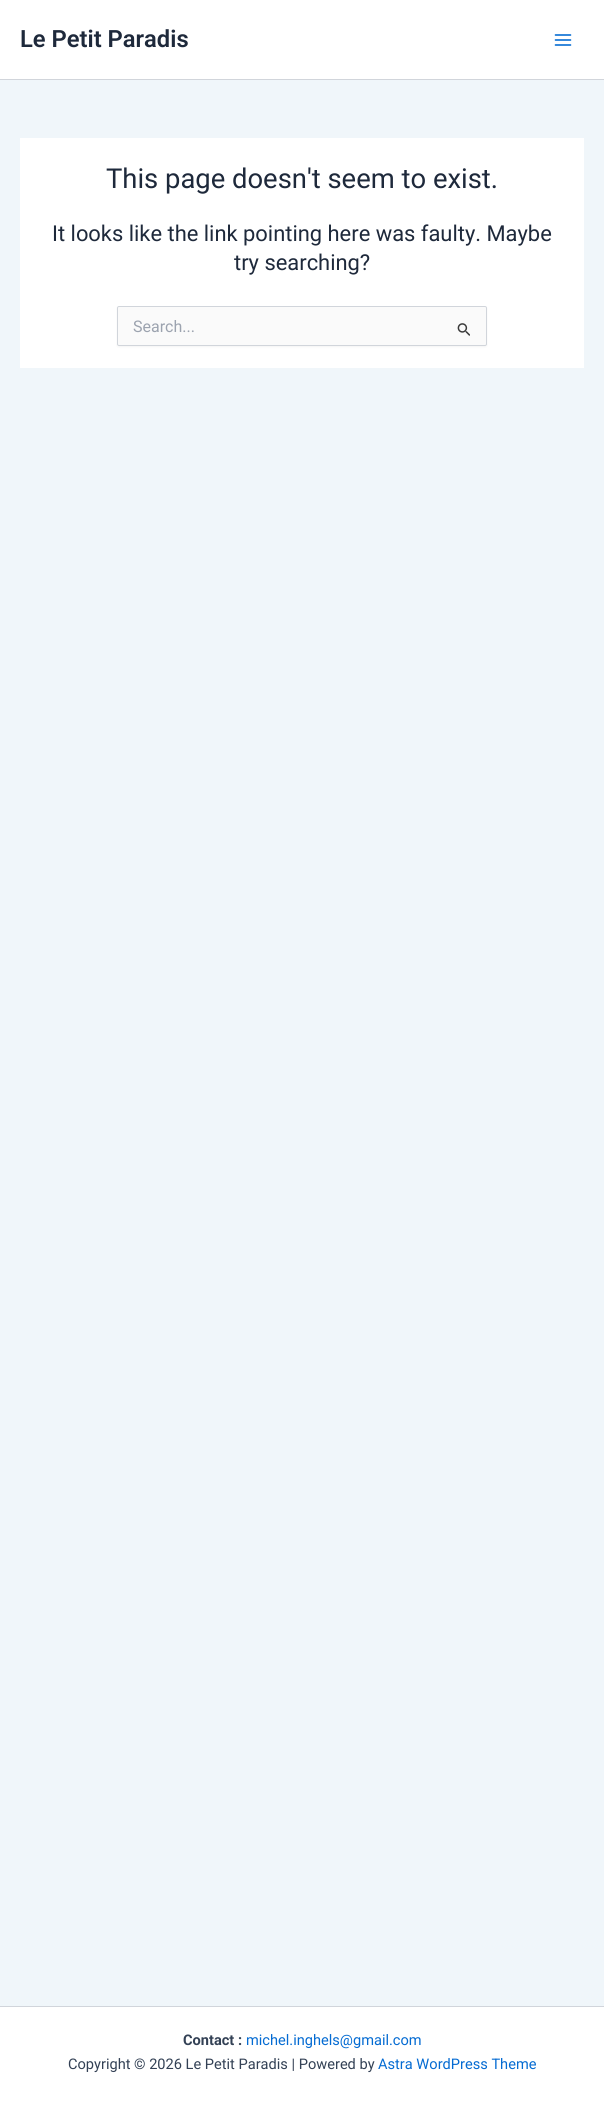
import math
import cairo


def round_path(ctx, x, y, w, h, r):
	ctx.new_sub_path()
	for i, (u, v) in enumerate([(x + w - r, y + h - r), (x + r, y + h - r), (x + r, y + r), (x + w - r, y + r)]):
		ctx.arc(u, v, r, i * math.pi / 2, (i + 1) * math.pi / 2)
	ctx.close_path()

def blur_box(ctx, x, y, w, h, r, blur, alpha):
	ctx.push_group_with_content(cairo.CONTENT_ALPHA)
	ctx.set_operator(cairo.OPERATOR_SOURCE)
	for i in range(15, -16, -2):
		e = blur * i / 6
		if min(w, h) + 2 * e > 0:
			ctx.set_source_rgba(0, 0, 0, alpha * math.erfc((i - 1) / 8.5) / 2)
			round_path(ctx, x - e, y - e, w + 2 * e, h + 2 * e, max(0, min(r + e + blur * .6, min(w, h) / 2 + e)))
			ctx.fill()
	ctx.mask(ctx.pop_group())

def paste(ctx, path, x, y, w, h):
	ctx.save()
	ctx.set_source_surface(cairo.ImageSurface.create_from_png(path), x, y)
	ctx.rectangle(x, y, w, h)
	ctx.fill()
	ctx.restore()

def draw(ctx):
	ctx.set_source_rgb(0.941, 0.961, 0.98)
	ctx.paint()
	ctx.set_source_rgb(1, 1, 1)
	ctx.rectangle(0, 0, 604, 79)
	ctx.fill()
	ctx.set_source_rgb(0.82, 0.835, 0.859)
	ctx.rectangle(0, 79, 604, 1)
	ctx.fill()
	ctx.select_font_face('Roboto SemiBold')
	ctx.set_font_size(23.75)
	ctx.set_source_rgb(0.118, 0.161, 0.231)
	ctx.move_to(20, 47)
	ctx.show_text('Le Petit Paradis')
	paste(ctx, 'media/1.png', 554, 34, 18, 12)
	ctx.set_source_rgb(1, 1, 1)
	ctx.rectangle(20, 138, 564, 230)
	ctx.fill()
	ctx.select_font_face('Roboto')
	ctx.set_font_size(27.4)
	ctx.set_source_rgb(0.118, 0.161, 0.231)
	ctx.move_to(106, 188)
	ctx.show_text('This page doesn\'t seem to exist.')
	ctx.set_font_size(21.9)
	ctx.move_to(52, 241)
	ctx.show_text('It looks like the link pointing here was faulty. Maybe')
	ctx.move_to(234, 270)
	ctx.show_text('try searching?')
	ctx.set_source_rgb(0, 0, 0)
	blur_box(ctx, 117, 307, 370, 40, 2, 1, 0.05)
	ctx.set_source_rgb(0.98, 0.98, 0.98)
	round_path(ctx, 117.5, 306.5, 369, 39, 1.5)
	ctx.fill_preserve()
	ctx.set_source_rgb(0.82, 0.835, 0.859)
	ctx.set_line_width(1)
	ctx.stroke()
	ctx.set_font_size(16)
	ctx.set_source_rgb(0.612, 0.639, 0.686)
	ctx.move_to(133, 332)
	ctx.show_text('Search...')
	paste(ctx, 'media/2.png', 457, 323, 13, 13)
	ctx.set_source_rgb(1, 1, 1)
	ctx.rectangle(0, 2007, 604, 100)
	ctx.fill()
	ctx.set_source_rgb(0.82, 0.835, 0.859)
	ctx.rectangle(0, 2006, 604, 1)
	ctx.fill()
	ctx.select_font_face('Roboto', cairo.FONT_SLANT_NORMAL, cairo.FONT_WEIGHT_BOLD)
	ctx.set_font_size(14.6)
	ctx.set_source_rgb(0.2, 0.255, 0.333)
	ctx.move_to(183, 2045)
	ctx.show_text('Contact :')
	ctx.select_font_face('Roboto')
	ctx.set_source_rgb(0.016, 0.42, 0.824)
	ctx.move_to(246, 2045)
	ctx.show_text('michel.inghels@gmail.com')
	ctx.set_source_rgb(0.2, 0.255, 0.333)
	ctx.move_to(68, 2069)
	ctx.show_text('Copyright © 2026 Le Petit Paradis | Powered by')
	ctx.set_source_rgb(0.016, 0.42, 0.824)
	ctx.move_to(378, 2069)
	ctx.show_text('Astra WordPress Theme')


surface = cairo.ImageSurface(cairo.FORMAT_RGB24, 604, 2107)
ctx = cairo.Context(surface)
options = cairo.FontOptions()
options.set_hint_metrics(cairo.HINT_METRICS_OFF)
options.set_hint_style(cairo.HINT_STYLE_NONE)
ctx.set_font_options(options)
ctx.set_miter_limit(4)
draw(ctx)
surface.write_to_png('image.png')
